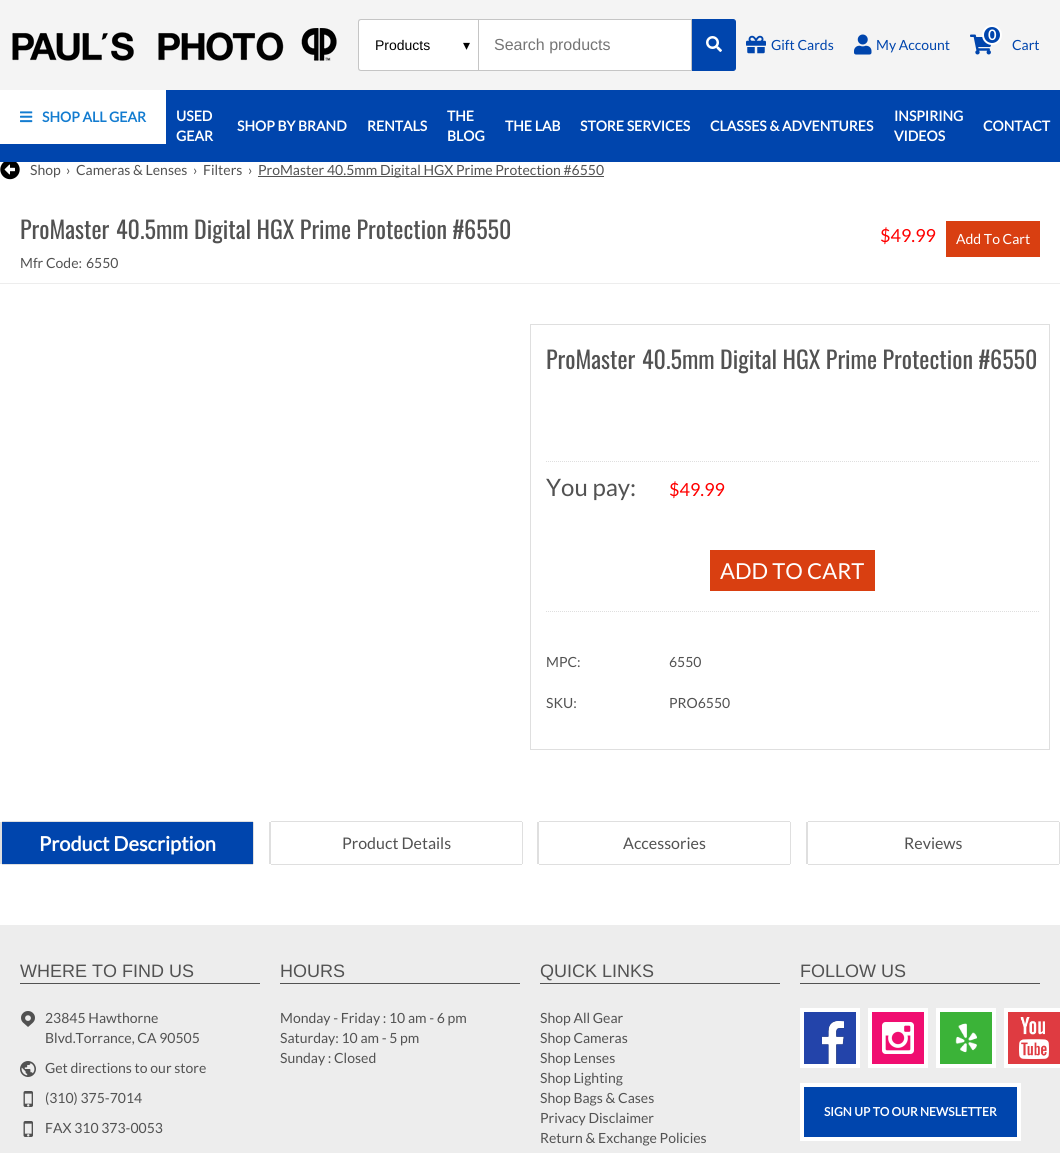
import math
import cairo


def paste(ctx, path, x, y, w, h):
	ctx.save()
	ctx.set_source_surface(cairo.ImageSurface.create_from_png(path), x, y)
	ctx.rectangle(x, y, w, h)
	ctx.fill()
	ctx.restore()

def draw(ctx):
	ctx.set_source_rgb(1, 1, 1)
	ctx.paint()
	ctx.set_source_rgb(0.957, 0.957, 0.957)
	ctx.rectangle(0, 0, 1060, 90)
	ctx.fill()
	paste(ctx, 'media/1.png', 12, 28, 325, 33)
	ctx.set_source_rgb(1, 1, 1)
	ctx.new_path()
	ctx.move_to(361, 19)
	ctx.line_to(478, 19)
	ctx.line_to(478, 71)
	ctx.line_to(361, 71)
	ctx.curve_to(359.5, 71, 358, 69.5, 358, 68)
	ctx.line_to(358, 22)
	ctx.curve_to(358, 20.5, 359.5, 19, 361, 19)
	ctx.close_path()
	ctx.fill()
	ctx.set_source_rgb(0.773, 0.773, 0.773)
	ctx.set_fill_rule(cairo.FILL_RULE_EVEN_ODD)
	ctx.new_path()
	ctx.move_to(361, 19)
	ctx.line_to(478, 19)
	ctx.line_to(478, 71)
	ctx.line_to(361, 71)
	ctx.curve_to(359, 71, 358, 70, 358, 68)
	ctx.line_to(358, 22)
	ctx.curve_to(358, 20, 359, 19, 361, 19)
	ctx.close_path()
	ctx.move_to(361, 20)
	ctx.line_to(478, 20)
	ctx.line_to(478, 70)
	ctx.line_to(361, 70)
	ctx.curve_to(360, 70, 359, 69, 359, 68)
	ctx.line_to(359, 22)
	ctx.curve_to(359, 21, 360, 20, 361, 20)
	ctx.close_path()
	ctx.fill()
	ctx.select_font_face('Liberation Sans')
	ctx.set_font_size(14)
	ctx.set_source_rgb(0, 0, 0)
	ctx.move_to(375, 50)
	ctx.show_text('Products')
	ctx.select_font_face('DejaVu Sans')
	ctx.move_to(463, 50)
	ctx.show_text('▾')
	ctx.set_source_rgb(1, 1, 1)
	ctx.rectangle(478.5, 19.5, 213, 51)
	ctx.fill_preserve()
	ctx.set_source_rgb(0.773, 0.773, 0.773)
	ctx.set_line_width(1)
	ctx.stroke()
	ctx.select_font_face('Liberation Sans')
	ctx.set_font_size(16)
	ctx.set_source_rgb(0.459, 0.459, 0.459)
	ctx.move_to(494, 50)
	ctx.show_text('Search products')
	ctx.set_source_rgb(0, 0.271, 0.678)
	ctx.new_path()
	ctx.move_to(692.5, 19.5)
	ctx.line_to(733, 19.5)
	ctx.curve_to(734.5, 19.5, 735.5, 20.5, 735.5, 22)
	ctx.line_to(735.5, 68)
	ctx.curve_to(735.5, 69.5, 734.5, 70.5, 733, 70.5)
	ctx.line_to(692.5, 70.5)
	ctx.close_path()
	ctx.fill_preserve()
	ctx.stroke()
	paste(ctx, 'media/2.png', 706, 36, 16, 16)
	paste(ctx, 'media/3.png', 746, 35, 20, 19)
	ctx.select_font_face('Lato')
	ctx.set_font_size(14)
	ctx.move_to(771, 50)
	ctx.show_text('Gift Cards')
	paste(ctx, 'media/4.png', 854, 34, 18, 21)
	ctx.move_to(876, 50)
	ctx.show_text('My Account')
	paste(ctx, 'media/5.png', 970, 34, 22, 21)
	ctx.arc(992, 35, 9, 0, 2 * math.pi)
	ctx.fill_preserve()
	ctx.set_source_rgb(1, 1, 1)
	ctx.set_line_width(2)
	ctx.stroke()
	ctx.select_font_face('Lato', cairo.FONT_SLANT_NORMAL, cairo.FONT_WEIGHT_BOLD)
	ctx.move_to(988, 40)
	ctx.show_text('0')
	ctx.select_font_face('Lato')
	ctx.set_source_rgb(0, 0.271, 0.678)
	ctx.move_to(1012, 50)
	ctx.show_text('Cart')
	ctx.rectangle(0, 90, 1060, 72)
	ctx.fill()
	ctx.set_source_rgb(1, 1, 1)
	ctx.rectangle(0, 90, 166, 54)
	ctx.fill()
	paste(ctx, 'media/6.png', 20, 111, 13, 12)
	ctx.select_font_face('Lato', cairo.FONT_SLANT_NORMAL, cairo.FONT_WEIGHT_BOLD)
	ctx.set_source_rgb(0.075, 0.486, 0.816)
	ctx.move_to(42, 122)
	ctx.show_text('SHOP ALL GEAR')
	ctx.set_source_rgb(1, 1, 1)
	for x, y, s in [
		(176, 121, 'USED'),
		(176, 141, 'GEAR'),
		(237, 131, 'SHOP BY BRAND'),
		(367, 131, 'RENTALS'),
		(447, 121, 'THE'),
		(447, 141, 'BLOG'),
		(505, 131, 'THE LAB'),
		(580, 131, 'STORE SERVICES'),
		(710, 131, 'CLASSES & ADVENTURES'),
		(894, 121, 'INSPIRING'),
		(894, 141, 'VIDEOS'),
		(983, 131, 'CONTACT'),
	]:
		ctx.move_to(x, y)
		ctx.show_text(s)
	paste(ctx, 'media/7.png', 0, 162, 20, 18)
	ctx.select_font_face('Lato')
	ctx.set_source_rgb(0.322, 0.322, 0.322)
	for x, y, s in [
		(30, 175, 'Shop'),
		(66, 175, '›'),
		(76, 175, 'Cameras & Lenses'),
		(193, 175, '›'),
		(203, 175, 'Filters'),
		(248, 175, '›'),
	]:
		ctx.move_to(x, y)
		ctx.show_text(s)
	ctx.rectangle(258, 176, 346, 1)
	ctx.fill()
	ctx.move_to(258, 175)
	ctx.show_text('ProMaster 40.5mm Digital HGX Prime Protection #6550')
	ctx.set_source_rgb(0.929, 0.929, 0.929)
	ctx.rectangle(0, 283, 1060, 1)
	ctx.fill()
	ctx.select_font_face('Oswald')
	ctx.set_font_size(24)
	ctx.set_source_rgb(0.322, 0.322, 0.322)
	ctx.move_to(20, 239)
	ctx.show_text('ProMaster')
	ctx.move_to(116, 239)
	ctx.show_text('40.5mm Digital HGX Prime Protection #6550')
	ctx.select_font_face('Lato')
	ctx.set_font_size(14)
	ctx.move_to(20, 268)
	ctx.show_text('Mfr Code:')
	ctx.move_to(86, 268)
	ctx.show_text('6550')
	ctx.set_font_size(18)
	ctx.set_source_rgb(1, 0, 0)
	ctx.move_to(880, 242)
	ctx.show_text('$49.99')
	ctx.set_source_rgb(0.851, 0.247, 0.067)
	ctx.rectangle(946, 221, 94, 36)
	ctx.fill()
	ctx.set_font_size(14)
	ctx.set_source_rgb(1, 1, 1)
	ctx.move_to(956, 244)
	ctx.show_text('Add To Cart')
	ctx.rectangle(530.5, 324.5, 519, 425)
	ctx.set_source_rgb(0.875, 0.875, 0.875)
	ctx.set_line_width(1)
	ctx.stroke()
	ctx.select_font_face('Oswald')
	ctx.set_font_size(24)
	ctx.set_source_rgb(0.322, 0.322, 0.322)
	ctx.move_to(546, 369)
	ctx.show_text('ProMaster')
	ctx.move_to(642, 369)
	ctx.show_text('40.5mm Digital HGX Prime Protection #6550')
	ctx.new_path()
	ctx.move_to(546, 461.5)
	ctx.line_to(1039, 461.5)
	ctx.set_source_rgb(0.875, 0.875, 0.875)
	ctx.set_dash([1, 1])
	ctx.stroke()
	ctx.select_font_face('Lato')
	ctx.set_source_rgb(0.322, 0.322, 0.322)
	ctx.move_to(546, 496)
	ctx.show_text('You pay:')
	ctx.set_font_size(18)
	ctx.set_source_rgb(1, 0, 0)
	ctx.move_to(669, 496)
	ctx.show_text('$49.99')
	ctx.set_source_rgb(0.851, 0.247, 0.067)
	ctx.rectangle(710, 550, 165, 41)
	ctx.fill()
	ctx.set_font_size(22)
	ctx.set_source_rgb(1, 1, 1)
	ctx.move_to(720, 579)
	ctx.show_text('ADD TO CART')
	ctx.new_path()
	ctx.move_to(546, 611.5)
	ctx.line_to(1039, 611.5)
	ctx.set_source_rgb(0.875, 0.875, 0.875)
	ctx.stroke()
	ctx.set_font_size(14)
	ctx.set_source_rgb(0.322, 0.322, 0.322)
	for x, y, s in [
		(546, 667, 'MPC:'),
		(669, 667, '6550'),
		(546, 708, 'SKU:'),
		(669, 708, 'PRO6550'),
	]:
		ctx.move_to(x, y)
		ctx.show_text(s)
	ctx.set_source_rgb(0, 0.271, 0.678)
	ctx.rectangle(2, 822, 251, 42)
	ctx.fill()
	ctx.set_source_rgb(0.875, 0.875, 0.875)
	ctx.rectangle(0, 821, 254, 1)
	ctx.rectangle(253, 821, 1, 44)
	ctx.rectangle(0, 864, 254, 1)
	ctx.rectangle(0, 821, 2, 44)
	ctx.fill()
	ctx.select_font_face('Lato', cairo.FONT_SLANT_NORMAL, cairo.FONT_WEIGHT_BOLD)
	ctx.set_font_size(20)
	ctx.set_source_rgb(1, 1, 1)
	ctx.move_to(39, 851)
	ctx.show_text('Product Description')
	ctx.set_source_rgb(0.875, 0.875, 0.875)
	ctx.rectangle(269, 821, 254, 1)
	ctx.rectangle(522, 821, 1, 44)
	ctx.rectangle(269, 864, 254, 1)
	ctx.rectangle(269, 821, 2, 44)
	ctx.fill()
	ctx.select_font_face('Lato')
	ctx.set_font_size(16)
	ctx.set_source_rgb(0.322, 0.322, 0.322)
	ctx.move_to(342, 849)
	ctx.show_text('Product Details')
	ctx.set_source_rgb(0.875, 0.875, 0.875)
	ctx.rectangle(537, 821, 254, 1)
	ctx.rectangle(790, 821, 1, 44)
	ctx.rectangle(537, 864, 254, 1)
	ctx.rectangle(537, 821, 2, 44)
	ctx.fill()
	ctx.set_source_rgb(0.322, 0.322, 0.322)
	ctx.move_to(623, 849)
	ctx.show_text('Accessories')
	ctx.set_source_rgb(0.875, 0.875, 0.875)
	ctx.rectangle(806, 821, 254, 1)
	ctx.rectangle(1059, 821, 1, 44)
	ctx.rectangle(806, 864, 254, 1)
	ctx.rectangle(806, 821, 2, 44)
	ctx.fill()
	ctx.set_source_rgb(0.322, 0.322, 0.322)
	ctx.move_to(904, 849)
	ctx.show_text('Reviews')
	ctx.set_source_rgb(0.929, 0.929, 0.929)
	ctx.rectangle(0, 925, 1060, 228)
	ctx.fill()
	ctx.set_source_rgb(0.322, 0.322, 0.322)
	ctx.rectangle(20, 983, 240, 1)
	ctx.fill()
	ctx.select_font_face('Liberation Sans')
	ctx.set_font_size(18)
	ctx.move_to(20, 977)
	ctx.show_text('WHERE TO FIND US')
	paste(ctx, 'media/8.png', 21, 1011, 14, 16)
	ctx.select_font_face('Lato')
	ctx.set_font_size(14)
	ctx.move_to(45, 1023)
	ctx.show_text('23845 Hawthorne')
	ctx.move_to(45, 1043)
	ctx.show_text('Blvd.Torrance, CA 90505')
	paste(ctx, 'media/9.png', 20, 1061, 16, 16)
	ctx.move_to(45, 1073)
	ctx.show_text('Get directions to our store')
	paste(ctx, 'media/10.png', 23, 1091, 10, 16)
	ctx.move_to(45, 1103)
	ctx.show_text('(310) 375-7014')
	paste(ctx, 'media/10.png', 23, 1121, 10, 16)
	ctx.move_to(45, 1133)
	ctx.show_text('FAX 310 373-0053')
	ctx.rectangle(280, 983, 240, 1)
	ctx.fill()
	ctx.select_font_face('Liberation Sans')
	ctx.set_font_size(18)
	ctx.move_to(280, 977)
	ctx.show_text('HOURS')
	ctx.select_font_face('Lato')
	ctx.set_font_size(14)
	for x, y, s in [
		(280, 1023, 'Monday - Friday : 10 am - 6 pm'),
		(280, 1043, 'Saturday: 10 am - 5 pm'),
		(280, 1063, 'Sunday : Closed'),
	]:
		ctx.move_to(x, y)
		ctx.show_text(s)
	ctx.rectangle(540, 983, 240, 1)
	ctx.fill()
	ctx.select_font_face('Liberation Sans')
	ctx.set_font_size(18)
	ctx.move_to(540, 977)
	ctx.show_text('QUICK LINKS')
	ctx.select_font_face('Lato')
	ctx.set_font_size(14)
	for x, y, s in [
		(540, 1023, 'Shop All Gear'),
		(540, 1043, 'Shop Cameras'),
		(540, 1063, 'Shop Lenses'),
		(540, 1083, 'Shop Lighting'),
		(540, 1103, 'Shop Bags & Cases'),
		(540, 1123, 'Privacy Disclaimer'),
		(540, 1143, 'Return & Exchange Policies'),
	]:
		ctx.move_to(x, y)
		ctx.show_text(s)
	ctx.rectangle(800, 983, 240, 1)
	ctx.fill()
	ctx.select_font_face('Liberation Sans')
	ctx.set_font_size(18)
	ctx.move_to(800, 977)
	ctx.show_text('FOLLOW US')
	ctx.set_source_rgb(0.137, 0.267, 0.667)
	ctx.rectangle(802, 1010, 56, 56)
	ctx.fill_preserve()
	ctx.set_source_rgb(1, 1, 1)
	ctx.set_line_width(4)
	ctx.set_dash([])
	ctx.stroke()
	paste(ctx, 'media/11.png', 822, 1021, 22, 43)
	ctx.set_source_rgb(0.941, 0.051, 0.439)
	ctx.rectangle(870, 1010, 56, 56)
	ctx.fill_preserve()
	ctx.set_source_rgb(1, 1, 1)
	ctx.stroke()
	paste(ctx, 'media/12.png', 882, 1022, 32, 32)
	ctx.set_source_rgb(0.231, 0.702, 0.22)
	ctx.rectangle(938, 1010, 56, 56)
	ctx.fill_preserve()
	ctx.set_source_rgb(1, 1, 1)
	ctx.stroke()
	paste(ctx, 'media/13.png', 955, 1023, 22, 30)
	ctx.set_source_rgb(0.875, 0.231, 0.255)
	ctx.rectangle(1006, 1010, 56, 56)
	ctx.fill_preserve()
	ctx.set_source_rgb(1, 1, 1)
	ctx.stroke()
	paste(ctx, 'media/14.png', 1019, 1017, 30, 42)
	ctx.set_source_rgb(0, 0.271, 0.678)
	ctx.rectangle(802, 1085, 217, 54)
	ctx.fill_preserve()
	ctx.set_source_rgb(1, 1, 1)
	ctx.stroke()
	ctx.select_font_face('Lato', cairo.FONT_SLANT_NORMAL, cairo.FONT_WEIGHT_BOLD)
	ctx.set_font_size(12)
	ctx.move_to(824, 1116)
	ctx.show_text('SIGN UP TO OUR NEWSLETTER')


surface = cairo.ImageSurface(cairo.FORMAT_RGB24, 1060, 1153)
ctx = cairo.Context(surface)
options = cairo.FontOptions()
options.set_hint_metrics(cairo.HINT_METRICS_OFF)
options.set_hint_style(cairo.HINT_STYLE_NONE)
ctx.set_font_options(options)
ctx.set_miter_limit(4)
draw(ctx)
surface.write_to_png('image.png')
